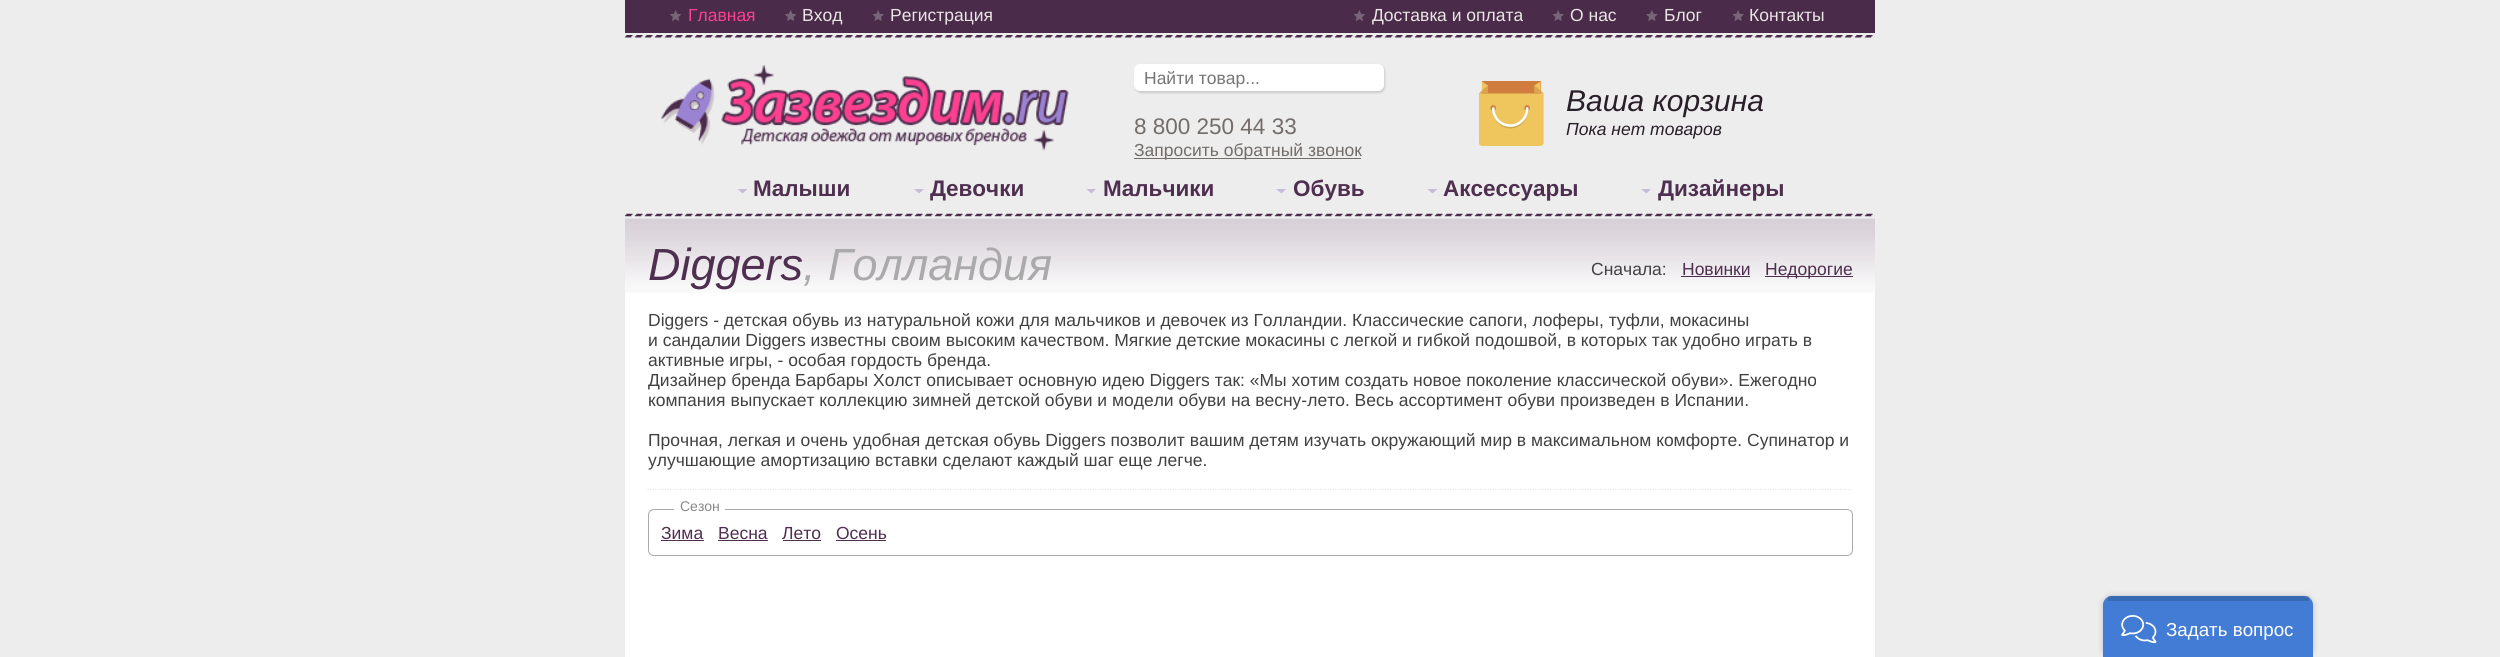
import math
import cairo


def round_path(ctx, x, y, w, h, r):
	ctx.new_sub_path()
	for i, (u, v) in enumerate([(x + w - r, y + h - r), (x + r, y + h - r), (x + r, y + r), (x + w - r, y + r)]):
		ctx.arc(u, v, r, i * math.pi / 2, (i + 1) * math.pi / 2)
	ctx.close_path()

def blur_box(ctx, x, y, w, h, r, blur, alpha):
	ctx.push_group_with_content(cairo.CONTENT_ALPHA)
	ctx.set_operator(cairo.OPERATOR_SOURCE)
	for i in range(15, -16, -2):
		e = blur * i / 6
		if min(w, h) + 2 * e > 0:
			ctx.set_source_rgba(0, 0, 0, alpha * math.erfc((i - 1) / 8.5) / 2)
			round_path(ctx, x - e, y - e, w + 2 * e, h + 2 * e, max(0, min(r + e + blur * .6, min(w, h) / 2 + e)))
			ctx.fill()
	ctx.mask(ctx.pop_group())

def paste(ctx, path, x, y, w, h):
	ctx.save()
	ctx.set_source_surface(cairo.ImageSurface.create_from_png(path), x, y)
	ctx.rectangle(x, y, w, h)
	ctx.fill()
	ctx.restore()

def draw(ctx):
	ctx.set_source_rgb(0.929, 0.929, 0.929)
	ctx.paint()
	ctx.set_source_rgb(0.29, 0.173, 0.29)
	ctx.rectangle(625, 0, 1250, 33)
	ctx.fill()
	paste(ctx, 'media/1.png', 670, 10, 11, 11)
	ctx.select_font_face('Liberation Sans')
	ctx.set_font_size(17.5)
	ctx.set_source_rgb(0.992, 0.251, 0.565)
	ctx.move_to(688, 21)
	ctx.show_text('Главная')
	paste(ctx, 'media/1.png', 785, 10, 11, 11)
	ctx.set_source_rgb(0.914, 0.902, 0.894)
	ctx.move_to(802, 21)
	ctx.show_text('Вход')
	paste(ctx, 'media/2.png', 873, 10, 11, 11)
	ctx.move_to(890, 21)
	ctx.show_text('Регистрация')
	paste(ctx, 'media/3.png', 1354, 10, 11, 11)
	ctx.move_to(1372, 21)
	ctx.show_text('Доставка и оплата')
	paste(ctx, 'media/2.png', 1553, 10, 11, 11)
	ctx.move_to(1570, 21)
	ctx.show_text('О нас')
	paste(ctx, 'media/4.png', 1646, 10, 12, 11)
	ctx.move_to(1664, 21)
	ctx.show_text('Блог')
	paste(ctx, 'media/2.png', 1733, 10, 11, 11)
	ctx.move_to(1749, 21)
	ctx.show_text('Контакты')
	paste(ctx, 'media/5.png', 625, 35, 1250, 3)
	paste(ctx, 'media/6.png', 661, 65, 408, 86)
	ctx.set_source_rgb(0.8, 0.8, 0.8)
	blur_box(ctx, 1135, 65, 250, 28, 6, 1, 1)
	ctx.set_source_rgb(1, 1, 1)
	round_path(ctx, 1134, 64, 250, 27, 6)
	ctx.fill()
	ctx.set_source_rgb(0.459, 0.459, 0.459)
	ctx.move_to(1144, 84)
	ctx.show_text('Найти товар...')
	ctx.set_font_size(22.5)
	ctx.set_source_rgb(0.451, 0.427, 0.416)
	ctx.move_to(1134, 134)
	ctx.show_text('8 800 250 44 33')
	ctx.rectangle(1134, 158, 227, 1)
	ctx.fill()
	ctx.set_font_size(17.5)
	ctx.move_to(1134, 156)
	ctx.show_text('Запросить обратный звонок')
	paste(ctx, 'media/7.png', 1479, 81, 65, 65)
	ctx.select_font_face('Liberation Sans', cairo.FONT_SLANT_ITALIC)
	ctx.set_font_size(30)
	ctx.set_source_rgb(0.161, 0.122, 0.161)
	ctx.move_to(1566, 111)
	ctx.show_text('Ваша корзина')
	ctx.set_font_size(17.5)
	ctx.move_to(1566, 135)
	ctx.show_text('Пока нет товаров')
	paste(ctx, 'media/8.png', 625, 213, 1250, 4)
	ctx.set_source_rgb(0.78, 0.733, 0.859)
	ctx.new_path()
	ctx.move_to(737.5, 189)
	ctx.line_to(742.5, 193.5)
	ctx.line_to(747.5, 189)
	ctx.close_path()
	ctx.fill()
	ctx.select_font_face('Liberation Sans', cairo.FONT_SLANT_NORMAL, cairo.FONT_WEIGHT_BOLD)
	ctx.set_font_size(22.5)
	ctx.set_source_rgb(0.31, 0.184, 0.31)
	ctx.move_to(753, 196)
	ctx.show_text('Малыши')
	ctx.set_source_rgb(0.78, 0.733, 0.859)
	ctx.new_path()
	ctx.move_to(914, 189)
	ctx.line_to(919, 193.5)
	ctx.line_to(924, 189)
	ctx.close_path()
	ctx.fill()
	ctx.set_source_rgb(0.31, 0.184, 0.31)
	ctx.move_to(930, 196)
	ctx.show_text('Девочки')
	ctx.set_source_rgb(0.78, 0.733, 0.859)
	ctx.new_path()
	ctx.move_to(1086, 189)
	ctx.line_to(1091.5, 193.5)
	ctx.line_to(1096, 189)
	ctx.close_path()
	ctx.fill()
	ctx.set_source_rgb(0.31, 0.184, 0.31)
	ctx.move_to(1103, 196)
	ctx.show_text('Мальчики')
	ctx.set_source_rgb(0.78, 0.733, 0.859)
	ctx.new_path()
	ctx.move_to(1276, 189)
	ctx.line_to(1281.5, 193.5)
	ctx.line_to(1286, 189)
	ctx.close_path()
	ctx.fill()
	ctx.set_source_rgb(0.31, 0.184, 0.31)
	ctx.move_to(1293, 196)
	ctx.show_text('Обувь')
	ctx.set_source_rgb(0.78, 0.733, 0.859)
	ctx.new_path()
	ctx.move_to(1427.5, 189)
	ctx.line_to(1432.5, 193.5)
	ctx.line_to(1437.5, 189)
	ctx.close_path()
	ctx.fill()
	ctx.set_source_rgb(0.31, 0.184, 0.31)
	ctx.move_to(1443, 196)
	ctx.show_text('Аксессуары')
	ctx.set_source_rgb(0.78, 0.733, 0.859)
	ctx.new_path()
	ctx.move_to(1641, 189)
	ctx.line_to(1646.5, 193.5)
	ctx.line_to(1651, 189)
	ctx.close_path()
	ctx.fill()
	ctx.set_source_rgb(0.31, 0.184, 0.31)
	ctx.move_to(1658, 196)
	ctx.show_text('Дизайнеры')
	ctx.set_source_rgb(1, 1, 1)
	ctx.rectangle(625, 219, 1250, 438)
	ctx.fill()
	paste(ctx, 'media/9.png', 625, 218, 1250, 75)
	ctx.select_font_face('Liberation Sans', cairo.FONT_SLANT_ITALIC)
	ctx.set_font_size(45)
	ctx.set_source_rgb(0.31, 0.184, 0.31)
	ctx.move_to(648, 280)
	ctx.show_text('Diggers')
	ctx.set_source_rgb(0.667, 0.667, 0.667)
	ctx.move_to(803, 280)
	ctx.show_text(', Голландия')
	ctx.select_font_face('Liberation Sans')
	ctx.set_font_size(17.5)
	ctx.set_source_rgb(0.255, 0.255, 0.255)
	ctx.move_to(1591, 275)
	ctx.show_text('Сначала:')
	ctx.set_source_rgb(0.31, 0.184, 0.31)
	ctx.move_to(1682, 275)
	ctx.show_text('Новинки')
	ctx.rectangle(1681, 276, 69, 1)
	ctx.fill()
	ctx.rectangle(1765, 276, 88, 1)
	ctx.fill()
	ctx.move_to(1765, 275)
	ctx.show_text('Недорогие')
	ctx.set_source_rgb(0.255, 0.255, 0.255)
	for x, y, s in [
		(648, 326, 'Diggers - детская обувь из натуральной кожи для мальчиков и девочек из Голландии. Классические сапоги, лоферы, туфли, мокасины'),
		(648, 346, 'и сандалии Diggers известны своим высоким качеством. Мягкие детские мокасины с легкой и гибкой подошвой, в которых так удобно играть в'),
		(648, 366, 'активные игры, - особая гордость бренда.'),
		(648, 386, 'Дизайнер бренда Барбары Холст описывает основную идею Diggers так: «Мы хотим создать новое поколение классической обуви». Ежегодно'),
		(648, 406, 'компания выпускает коллекцию зимней детской обуви и модели обуви на весну-лето. Весь ассортимент обуви произведен в Испании.'),
		(648, 446, 'Прочная, легкая и очень удобная детская обувь Diggers позволит вашим детям изучать окружающий мир в максимальном комфорте. Супинатор и'),
		(648, 466, 'улучшающие амортизацию вставки сделают каждый шаг еще легче.'),
	]:
		ctx.move_to(x, y)
		ctx.show_text(s)
	ctx.new_path()
	ctx.move_to(647.5, 489.5)
	ctx.line_to(1852.5, 489.5)
	ctx.set_source_rgb(0.906, 0.89, 0.906)
	ctx.set_line_width(1.2)
	ctx.set_dash([1.25, 1.25])
	ctx.stroke()
	round_path(ctx, 648.5, 509.5, 1204, 46, 5.5)
	ctx.set_source_rgb(0.667, 0.667, 0.667)
	ctx.set_line_width(1)
	ctx.set_dash([])
	ctx.stroke()
	ctx.set_source_rgb(1, 1, 1)
	ctx.rectangle(674, 509, 51, 1)
	ctx.fill()
	ctx.set_font_size(14)
	ctx.set_source_rgb(0.533, 0.533, 0.533)
	ctx.move_to(680, 511)
	ctx.show_text('Сезон')
	ctx.set_font_size(17.5)
	ctx.set_source_rgb(0.31, 0.184, 0.31)
	ctx.move_to(661, 539)
	ctx.show_text('Зима')
	ctx.rectangle(661, 540, 43, 1)
	ctx.fill()
	ctx.move_to(718, 539)
	ctx.show_text('Весна')
	ctx.rectangle(718, 540, 50, 1)
	ctx.fill()
	ctx.move_to(782, 539)
	ctx.show_text('Лето')
	ctx.rectangle(783, 540, 38, 1)
	ctx.fill()
	ctx.move_to(836, 539)
	ctx.show_text('Осень')
	ctx.rectangle(836, 540, 50, 1)
	ctx.fill()
	ctx.set_source_rgb(0, 0, 0)
	blur_box(ctx, 2103, 596, 210, 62, 9, 3, 0.2)
	ctx.set_source_rgb(0.259, 0.486, 0.831)
	ctx.new_path()
	ctx.move_to(2112, 596)
	ctx.line_to(2304, 596)
	ctx.curve_to(2309, 596, 2313, 600, 2313, 605)
	ctx.line_to(2313, 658)
	ctx.line_to(2103, 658)
	ctx.line_to(2103, 605)
	ctx.curve_to(2103, 600, 2107, 596, 2112, 596)
	ctx.close_path()
	ctx.fill()
	ctx.set_source_rgba(0, 0, 0, 0.15)
	ctx.rectangle(2108, 596, 201, 5)
	ctx.fill()
	paste(ctx, 'media/10.png', 2121, 615, 36, 29)
	ctx.set_font_size(18.75)
	ctx.set_source_rgb(1, 1, 1)
	ctx.move_to(2166, 636)
	ctx.show_text('Задать вопрос')


surface = cairo.ImageSurface(cairo.FORMAT_RGB24, 2500, 657)
ctx = cairo.Context(surface)
options = cairo.FontOptions()
options.set_hint_metrics(cairo.HINT_METRICS_OFF)
options.set_hint_style(cairo.HINT_STYLE_NONE)
ctx.set_font_options(options)
ctx.set_miter_limit(4)
draw(ctx)
surface.write_to_png('image.png')
